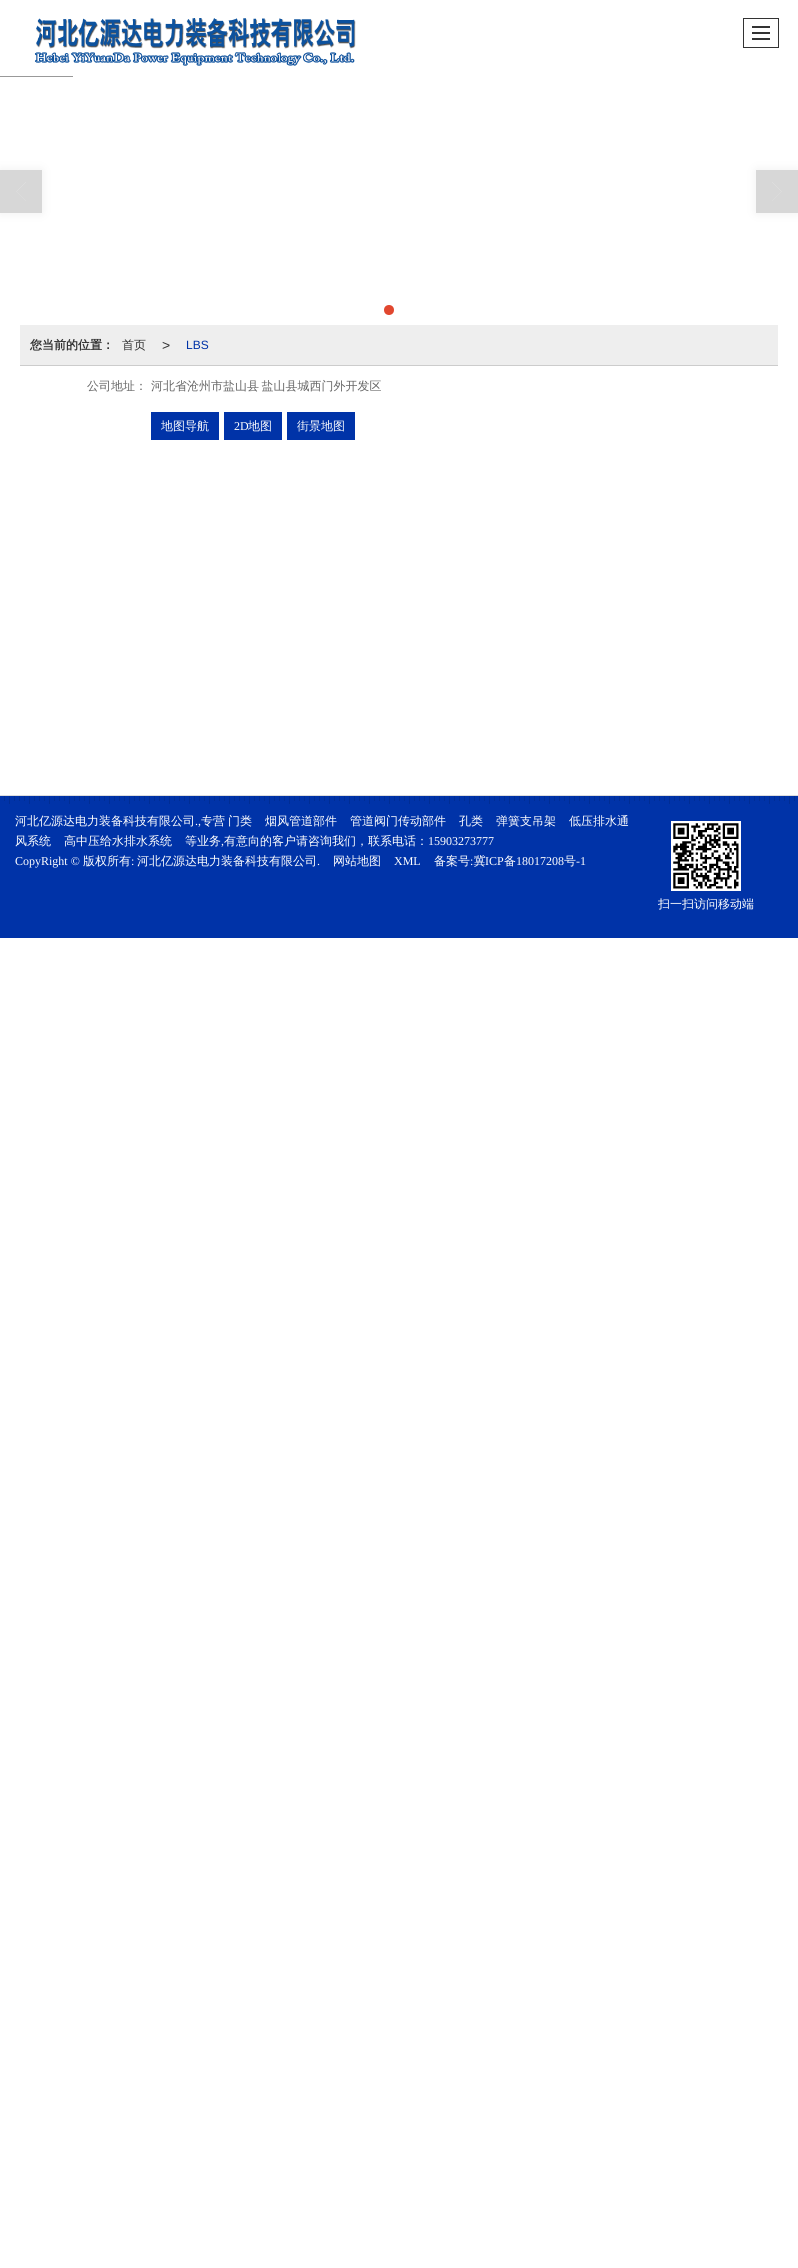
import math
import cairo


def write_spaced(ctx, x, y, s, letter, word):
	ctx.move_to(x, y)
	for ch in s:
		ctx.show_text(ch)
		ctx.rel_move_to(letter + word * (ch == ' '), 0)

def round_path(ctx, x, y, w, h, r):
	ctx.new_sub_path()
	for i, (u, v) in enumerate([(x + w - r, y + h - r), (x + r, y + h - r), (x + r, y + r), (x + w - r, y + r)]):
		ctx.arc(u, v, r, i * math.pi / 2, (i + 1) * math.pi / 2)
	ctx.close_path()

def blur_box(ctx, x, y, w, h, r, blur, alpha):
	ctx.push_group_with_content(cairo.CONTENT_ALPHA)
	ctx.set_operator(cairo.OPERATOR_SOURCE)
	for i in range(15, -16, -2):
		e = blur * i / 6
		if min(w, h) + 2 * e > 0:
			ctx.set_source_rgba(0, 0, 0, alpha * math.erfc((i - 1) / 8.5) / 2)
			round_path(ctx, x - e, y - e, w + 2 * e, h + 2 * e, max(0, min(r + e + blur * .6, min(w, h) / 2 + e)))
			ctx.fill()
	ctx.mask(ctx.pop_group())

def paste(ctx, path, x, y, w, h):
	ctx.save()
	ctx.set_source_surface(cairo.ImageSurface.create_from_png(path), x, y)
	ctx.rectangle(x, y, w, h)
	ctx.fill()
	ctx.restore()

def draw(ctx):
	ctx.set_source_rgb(1, 1, 1)
	ctx.paint()
	paste(ctx, 'media/1.png', 34, 18, 322, 48)
	ctx.rectangle(743.5, 18.5, 35, 29)
	ctx.set_source_rgb(0.2, 0.2, 0.2)
	ctx.set_line_width(1)
	ctx.stroke()
	ctx.rectangle(752, 26, 18, 2)
	ctx.rectangle(752, 32, 18, 2)
	ctx.rectangle(752, 38, 18, 2)
	ctx.fill()
	ctx.set_source_rgb(0.6, 0.6, 0.6)
	ctx.rectangle(0, 76, 73, 1)
	ctx.fill()
	ctx.set_source_rgb(0.8, 0.8, 0.8)
	blur_box(ctx, 0, 170, 42, 43, 0, 5, 0.3)
	ctx.set_source_rgb(0.843, 0.843, 0.843)
	ctx.rectangle(0, 170, 42, 43)
	ctx.fill()
	paste(ctx, 'media/2.png', 16, 182, 10, 19)
	ctx.set_source_rgb(0.8, 0.8, 0.8)
	blur_box(ctx, 756, 170, 42, 43, 0, 5, 0.3)
	ctx.set_source_rgb(0.843, 0.843, 0.843)
	ctx.rectangle(756, 170, 42, 43)
	ctx.fill()
	paste(ctx, 'media/3.png', 772, 182, 10, 19)
	ctx.set_source_rgb(0.882, 0.278, 0.184)
	ctx.arc(389, 310, 5, 0, 2 * math.pi)
	ctx.fill()
	ctx.set_source_rgb(0.933, 0.933, 0.933)
	ctx.rectangle(20, 325, 758, 40)
	ctx.fill()
	ctx.set_source_rgb(0.8, 0.8, 0.8)
	ctx.rectangle(20, 365, 758, 1)
	ctx.fill()
	ctx.select_font_face('WenQuanYi Zen Hei', cairo.FONT_SLANT_NORMAL, cairo.FONT_WEIGHT_BOLD)
	ctx.set_font_size(12)
	ctx.set_source_rgb(0.2, 0.2, 0.2)
	ctx.move_to(30, 349)
	ctx.show_text('您当前的位置：')
	ctx.select_font_face('WenQuanYi Zen Hei Medium')
	ctx.move_to(122, 349)
	ctx.show_text('首页')
	ctx.select_font_face('Liberation Sans')
	ctx.set_font_size(14)
	ctx.move_to(162, 350)
	ctx.show_text('>')
	ctx.set_font_size(12)
	ctx.set_source_rgb(0, 0.2, 0.659)
	ctx.move_to(186, 349)
	ctx.show_text('LBS')
	ctx.select_font_face('WenQuanYi Zen Hei Medium')
	ctx.set_source_rgb(0.4, 0.4, 0.4)
	ctx.move_to(87, 390)
	ctx.show_text('公司地址：')
	write_spaced(ctx, 151, 390, '河北省沧州市盐山县 盐山县城西门外开发区', 0, -1)
	ctx.set_source_rgb(0, 0.2, 0.659)
	ctx.rectangle(151, 412, 68, 28)
	ctx.fill()
	ctx.set_source_rgb(1, 1, 1)
	ctx.move_to(161, 430)
	ctx.show_text('地图导航')
	ctx.set_source_rgb(0, 0.2, 0.659)
	ctx.rectangle(224, 412, 58, 28)
	ctx.fill()
	ctx.select_font_face('Liberation Serif')
	ctx.set_source_rgb(1, 1, 1)
	ctx.move_to(234, 430)
	ctx.show_text('2D')
	ctx.select_font_face('WenQuanYi Zen Hei Medium')
	ctx.move_to(248, 430)
	ctx.show_text('地图')
	ctx.set_source_rgb(0, 0.2, 0.659)
	ctx.rectangle(287, 412, 68, 28)
	ctx.fill()
	ctx.set_source_rgb(1, 1, 1)
	ctx.move_to(297, 430)
	ctx.show_text('街景地图')
	ctx.set_source_rgb(0.867, 0.867, 0.867)
	ctx.rectangle(0, 795, 798, 1)
	ctx.fill()
	ctx.set_source_rgb(0, 0.2, 0.659)
	ctx.rectangle(0, 796, 798, 142)
	ctx.fill()
	paste(ctx, 'media/4.png', 4, 796, 791, 8)
	ctx.set_source_rgb(1, 1, 1)
	ctx.move_to(15, 825)
	ctx.show_text('河北亿源达电力装备科技有限公司')
	ctx.select_font_face('Liberation Serif')
	ctx.move_to(195, 825)
	ctx.show_text('.,')
	ctx.select_font_face('WenQuanYi Zen Hei Medium')
	for x, y, s in [
		(201, 825, '专营'),
		(228, 825, '门类'),
		(265, 825, '烟风管道部件'),
		(350, 825, '管道阀门传动部件'),
		(459, 825, '孔类'),
		(496, 825, '弹簧支吊架'),
		(569, 825, '低压排水通'),
		(15, 845, '风系统'),
		(64, 845, '高中压给水排水系统'),
		(185, 845, '等业务'),
	]:
		ctx.move_to(x, y)
		ctx.show_text(s)
	ctx.select_font_face('Liberation Serif')
	ctx.move_to(221, 845)
	ctx.show_text(',')
	ctx.select_font_face('WenQuanYi Zen Hei Medium')
	ctx.move_to(224, 845)
	ctx.show_text('有意向的客户请咨询我们，联系电话：')
	ctx.select_font_face('Liberation Serif')
	ctx.move_to(428, 845)
	ctx.show_text('15903273777')
	ctx.move_to(15, 865)
	ctx.show_text('CopyRight ©')
	ctx.select_font_face('WenQuanYi Zen Hei Medium')
	ctx.move_to(83, 865)
	ctx.show_text('版权所有')
	ctx.select_font_face('Liberation Serif')
	ctx.move_to(131, 865)
	ctx.show_text(':')
	ctx.select_font_face('WenQuanYi Zen Hei Medium')
	ctx.move_to(137, 865)
	ctx.show_text('河北亿源达电力装备科技有限公司')
	ctx.move_to(333, 865)
	ctx.show_text('网站地图')
	ctx.select_font_face('Liberation Serif')
	ctx.move_to(394, 865)
	ctx.show_text('XML')
	ctx.select_font_face('WenQuanYi Zen Hei Medium')
	ctx.move_to(434, 865)
	ctx.show_text('备案号 冀')
	ctx.select_font_face('Liberation Serif')
	ctx.move_to(485, 865)
	ctx.show_text('ICP')
	ctx.select_font_face('WenQuanYi Zen Hei Medium')
	ctx.move_to(504, 865)
	ctx.show_text('备')
	ctx.select_font_face('Liberation Serif')
	ctx.move_to(516, 865)
	ctx.show_text('18017208')
	ctx.select_font_face('WenQuanYi Zen Hei Medium')
	ctx.move_to(564, 865)
	ctx.show_text('号')
	ctx.select_font_face('Liberation Serif')
	for x, y, s in [
		(576, 865, '-1'),
		(317, 865, '.'),
		(470, 865, ':'),
	]:
		ctx.move_to(x, y)
		ctx.show_text(s)
	paste(ctx, 'media/5.png', 671, 821, 70, 70)
	ctx.select_font_face('WenQuanYi Zen Hei Medium')
	ctx.move_to(658, 908)
	ctx.show_text('扫一扫访问移动端')


surface = cairo.ImageSurface(cairo.FORMAT_RGB24, 798, 2268)
ctx = cairo.Context(surface)
options = cairo.FontOptions()
options.set_hint_metrics(cairo.HINT_METRICS_OFF)
options.set_hint_style(cairo.HINT_STYLE_NONE)
ctx.set_font_options(options)
ctx.set_miter_limit(4)
draw(ctx)
surface.write_to_png('image.png')
